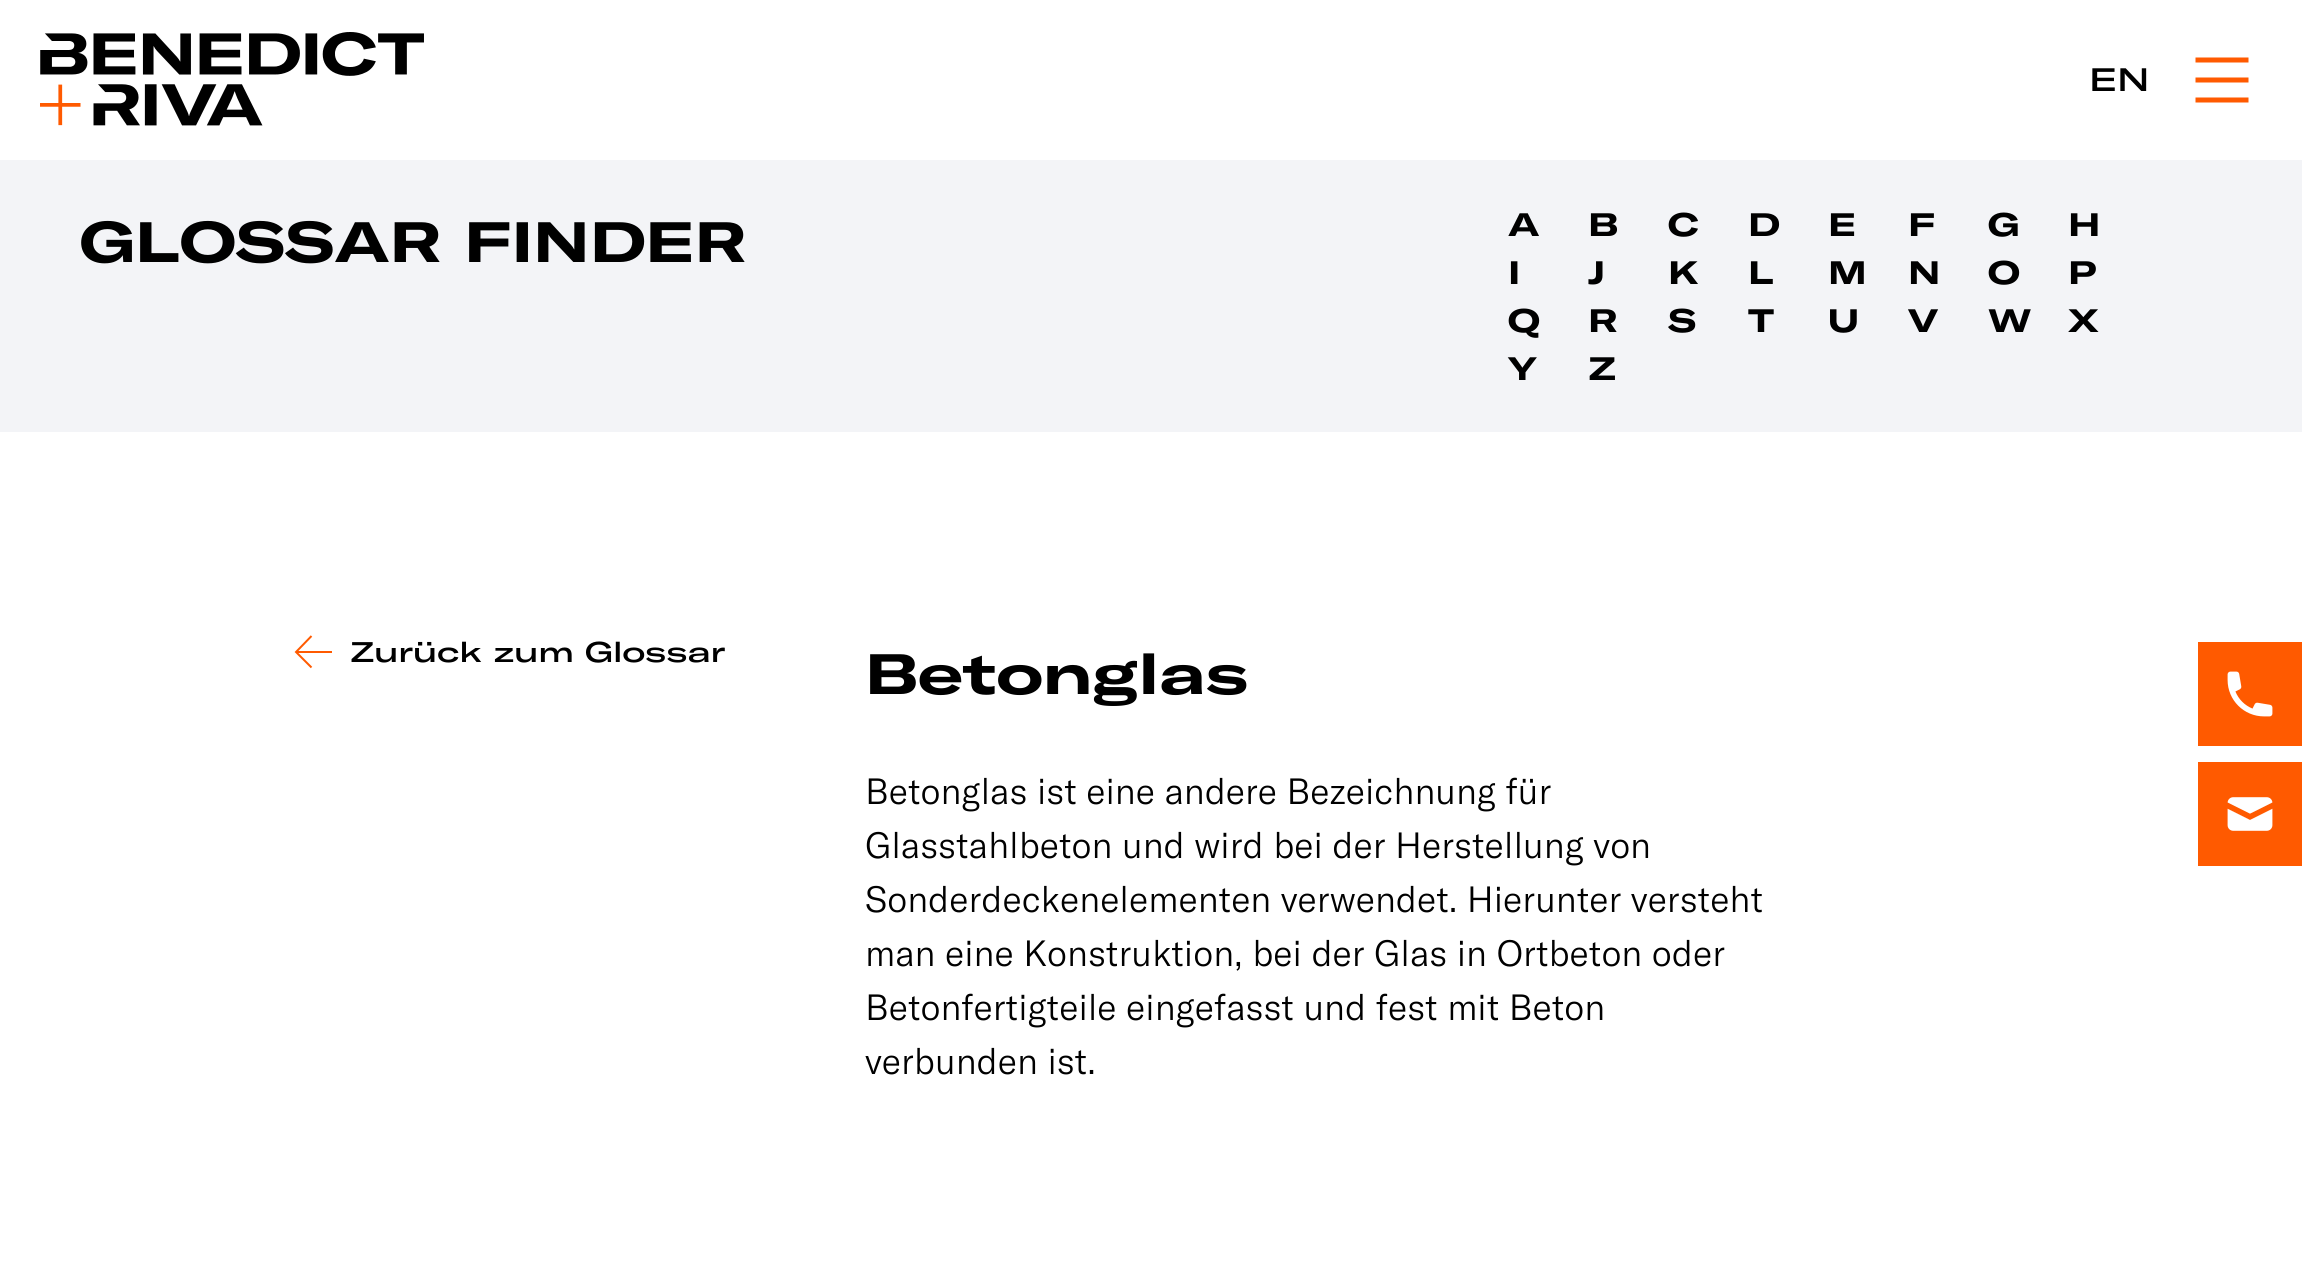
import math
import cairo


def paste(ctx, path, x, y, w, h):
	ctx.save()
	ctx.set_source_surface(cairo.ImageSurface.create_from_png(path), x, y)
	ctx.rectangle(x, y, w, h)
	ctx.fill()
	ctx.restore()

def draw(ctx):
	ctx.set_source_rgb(1, 1, 1)
	ctx.paint()
	paste(ctx, 'media/1.png', 40, 32, 384, 94)
	ctx.select_font_face('GT America Medium')
	ctx.set_font_size(32)
	ctx.set_source_rgb(0, 0, 0)
	ctx.move_to(2089, 91)
	ctx.show_text('EN')
	ctx.new_path()
	ctx.move_to(2195.5, 60)
	ctx.line_to(2248.5, 60)
	ctx.move_to(2195.5, 80)
	ctx.line_to(2248.5, 80)
	ctx.move_to(2195.5, 100)
	ctx.line_to(2248.5, 100)
	ctx.set_source_rgb(1, 0.353, 0)
	ctx.set_line_width(5)
	ctx.stroke()
	ctx.set_source_rgb(0.953, 0.957, 0.965)
	ctx.rectangle(0, 160, 2302, 272)
	ctx.fill()
	ctx.select_font_face('GT America', cairo.FONT_SLANT_NORMAL, cairo.FONT_WEIGHT_BOLD)
	ctx.set_font_size(56)
	ctx.set_source_rgb(0, 0, 0)
	ctx.move_to(80, 262)
	ctx.show_text('GLOSSAR FINDER')
	ctx.set_font_size(32)
	for x, y, s in [
		(1508, 236, 'A'),
		(1588, 236, 'B'),
		(1668, 236, 'C'),
		(1748, 236, 'D'),
		(1828, 236, 'E'),
		(1908, 236, 'F'),
		(1988, 236, 'G'),
		(2068, 236, 'H'),
		(1508, 284, 'I'),
		(1588, 284, 'J'),
		(1668, 284, 'K'),
		(1748, 284, 'L'),
		(1828, 284, 'M'),
		(1908, 284, 'N'),
		(1988, 284, 'O'),
		(2068, 284, 'P'),
		(1508, 332, 'Q'),
		(1588, 332, 'R'),
		(1668, 332, 'S'),
		(1748, 332, 'T'),
		(1828, 332, 'U'),
		(1908, 332, 'V'),
		(1988, 332, 'W'),
		(2068, 332, 'X'),
		(1508, 380, 'Y'),
		(1588, 380, 'Z'),
	]:
		ctx.move_to(x, y)
		ctx.show_text(s)
	ctx.set_source_rgb(1, 0.353, 0)
	ctx.rectangle(296, 651, 36, 2)
	ctx.fill()
	ctx.new_path()
	ctx.move_to(311.5, 667.5)
	ctx.line_to(296, 652)
	ctx.line_to(311.5, 636)
	ctx.set_line_width(2)
	ctx.stroke()
	ctx.select_font_face('GT America Medium')
	ctx.set_font_size(28)
	ctx.set_source_rgb(0, 0, 0)
	ctx.move_to(350, 662)
	ctx.show_text('Zurück zum Glossar')
	ctx.select_font_face('GT America', cairo.FONT_SLANT_NORMAL, cairo.FONT_WEIGHT_BOLD)
	ctx.set_font_size(56)
	ctx.move_to(865, 694)
	ctx.show_text('Betonglas')
	ctx.select_font_face('GT America Light')
	ctx.set_font_size(36)
	for x, y, s in [
		(865, 804, 'Betonglas ist eine andere Bezeichnung für'),
		(865, 858, 'Glasstahlbeton und wird bei der Herstellung von'),
		(865, 912, 'Sonderdeckenelementen verwendet. Hierunter versteht'),
		(865, 966, 'man eine Konstruktion, bei der Glas in Ortbeton oder'),
		(865, 1020, 'Betonfertigteile eingefasst und fest mit Beton'),
		(865, 1074, 'verbunden ist.'),
	]:
		ctx.move_to(x, y)
		ctx.show_text(s)
	ctx.set_source_rgb(1, 0.353, 0)
	ctx.rectangle(2198, 642, 104, 104)
	ctx.fill()
	paste(ctx, 'media/2.png', 2227, 671, 46, 46)
	ctx.rectangle(2198, 762, 104, 104)
	ctx.fill()
	paste(ctx, 'media/3.png', 2227, 797, 46, 34)


surface = cairo.ImageSurface(cairo.FORMAT_RGB24, 2302, 1282)
ctx = cairo.Context(surface)
options = cairo.FontOptions()
options.set_hint_metrics(cairo.HINT_METRICS_OFF)
options.set_hint_style(cairo.HINT_STYLE_NONE)
ctx.set_font_options(options)
ctx.set_miter_limit(4)
draw(ctx)
surface.write_to_png('image.png')
